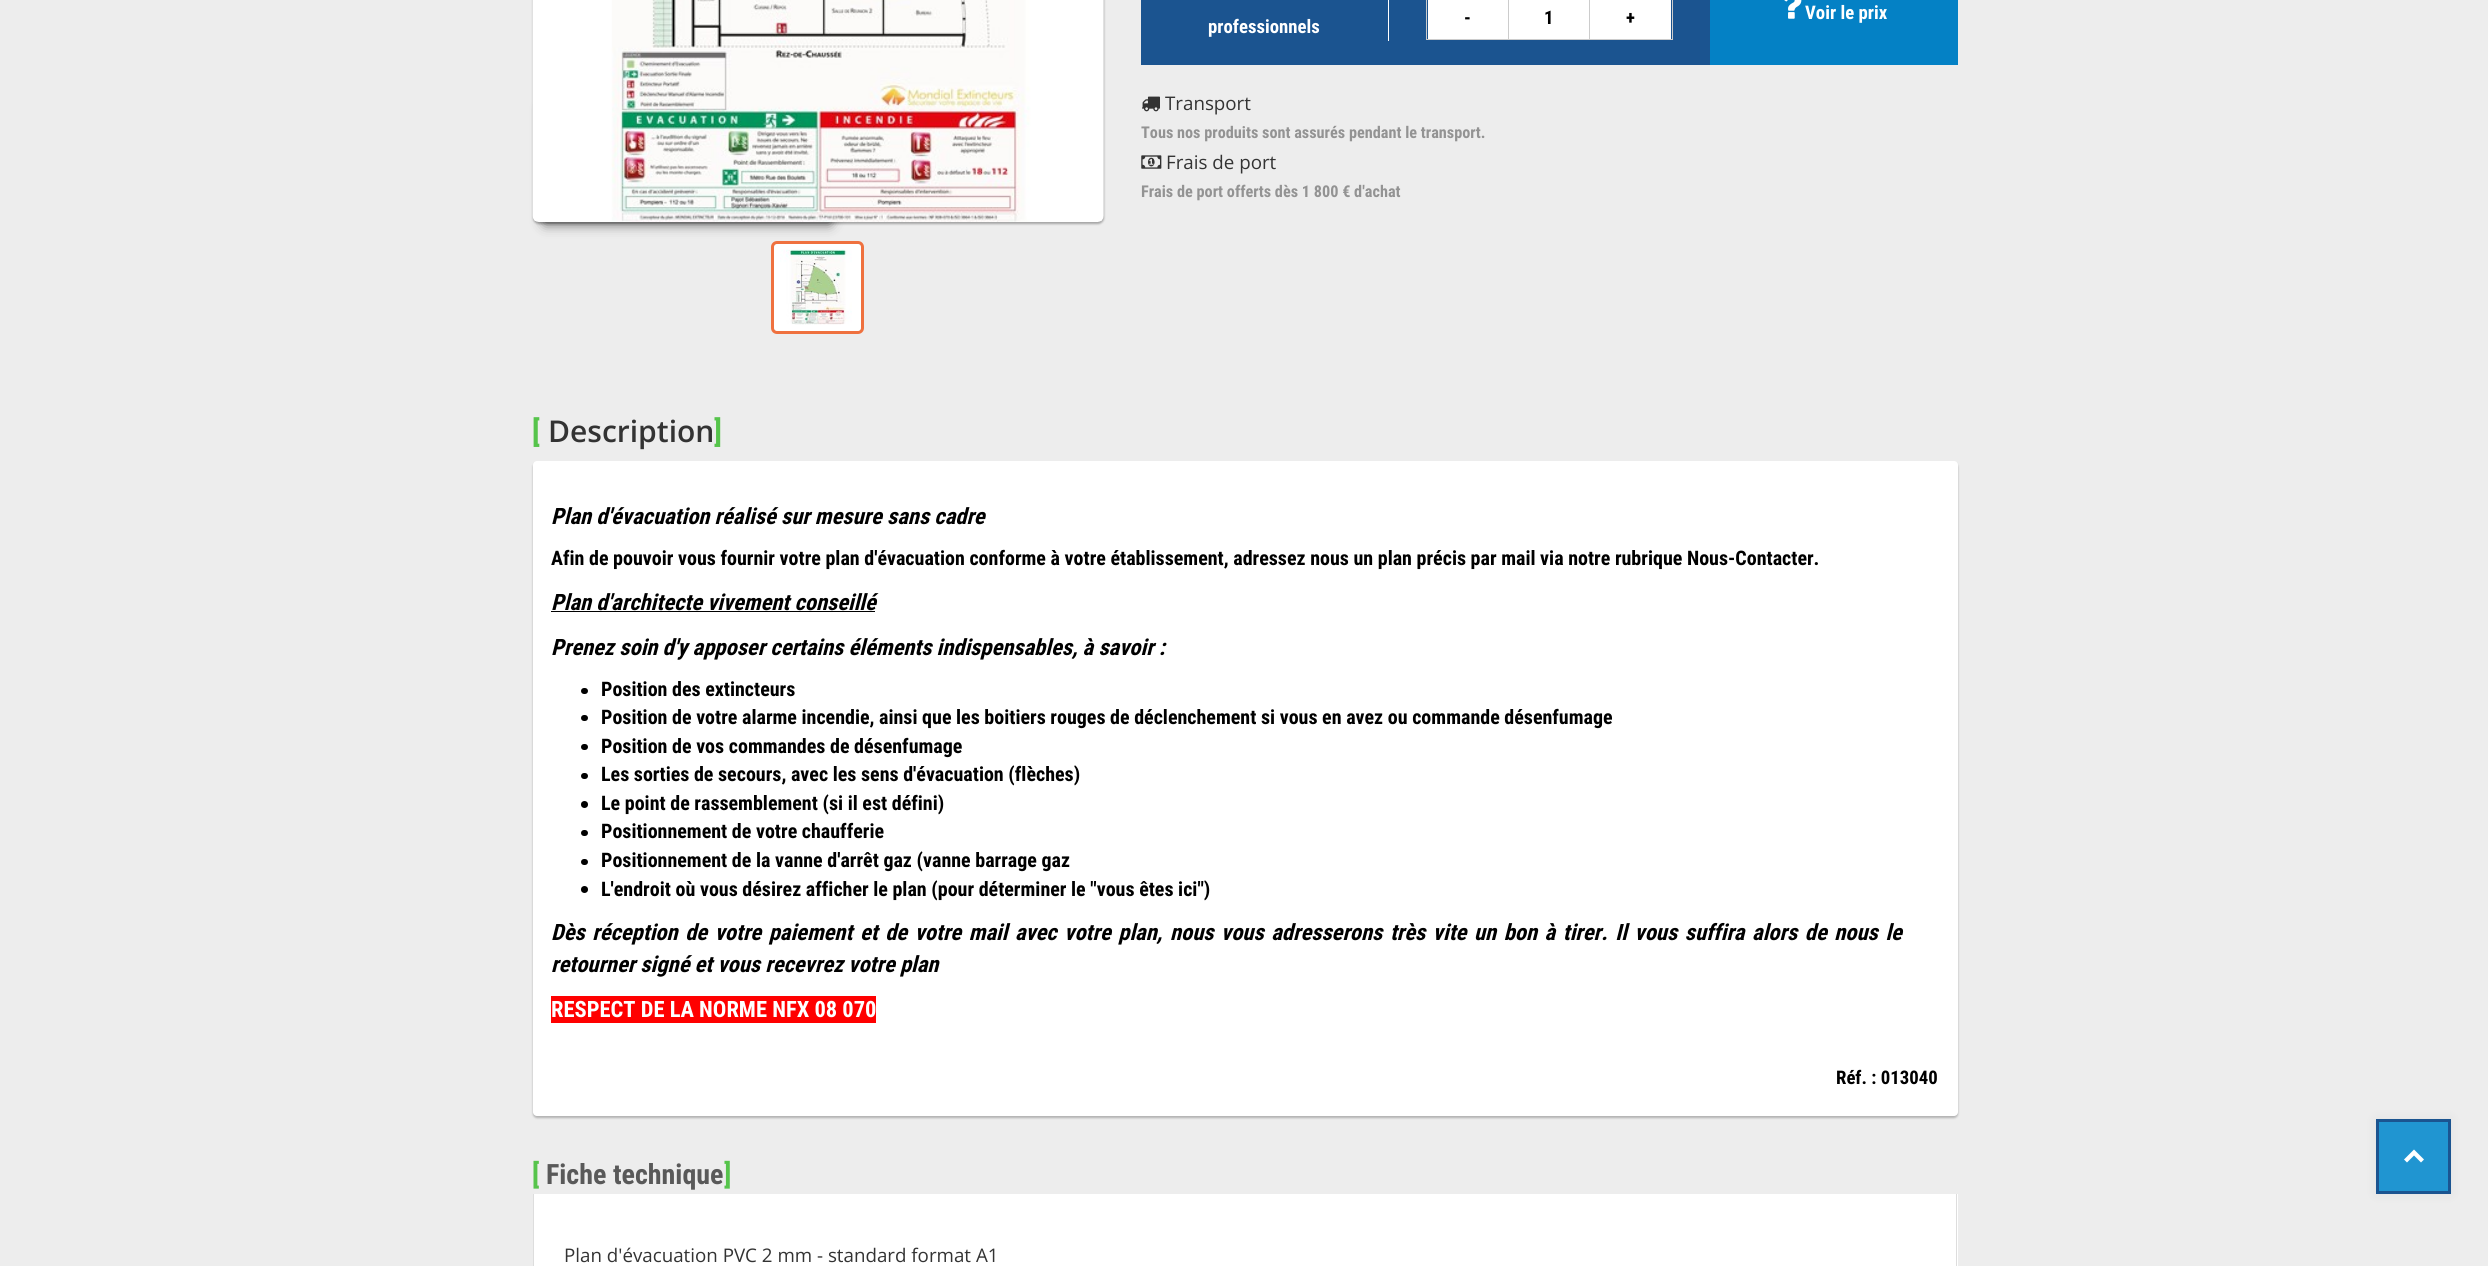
import math
import cairo


def write_spaced(ctx, x, y, s, letter, word):
	ctx.move_to(x, y)
	for ch in s:
		ctx.show_text(ch)
		ctx.rel_move_to(letter + word * (ch == ' '), 0)

def round_path(ctx, x, y, w, h, r):
	ctx.new_sub_path()
	for i, (u, v) in enumerate([(x + w - r, y + h - r), (x + r, y + h - r), (x + r, y + r), (x + w - r, y + r)]):
		ctx.arc(u, v, r, i * math.pi / 2, (i + 1) * math.pi / 2)
	ctx.close_path()

def blur_box(ctx, x, y, w, h, r, blur, alpha):
	ctx.push_group_with_content(cairo.CONTENT_ALPHA)
	ctx.set_operator(cairo.OPERATOR_SOURCE)
	for i in range(15, -16, -2):
		e = blur * i / 6
		if min(w, h) + 2 * e > 0:
			ctx.set_source_rgba(0, 0, 0, alpha * math.erfc((i - 1) / 8.5) / 2)
			round_path(ctx, x - e, y - e, w + 2 * e, h + 2 * e, max(0, min(r + e + blur * .6, min(w, h) / 2 + e)))
			ctx.fill()
	ctx.mask(ctx.pop_group())

def paste(ctx, path, x, y, w, h):
	ctx.save()
	ctx.set_source_surface(cairo.ImageSurface.create_from_png(path), x, y)
	ctx.rectangle(x, y, w, h)
	ctx.fill()
	ctx.restore()

def draw(ctx):
	ctx.set_source_rgb(0.929, 0.929, 0.929)
	ctx.paint()
	ctx.set_source_rgb(0, 0, 0)
	blur_box(ctx, 533, -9, 571, 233, 6, 1, 0.3)
	round_path(ctx, 772.5, 242.5, 90, 90, 4.5)
	ctx.set_source_rgb(0.937, 0.443, 0.247)
	ctx.set_line_width(3)
	ctx.stroke()
	ctx.set_source_rgb(0, 0, 0)
	blur_box(ctx, 545, 108, 285, 115, 0, 6.5, 0.7)
	paste(ctx, 'media/1.png', 532, 0, 572, 222)
	ctx.set_source_rgb(1, 1, 1)
	round_path(ctx, 774, 244, 87, 87, 4)
	ctx.fill()
	paste(ctx, 'media/2.png', 780, 249, 72, 76)
	ctx.set_source_rgb(0.106, 0.329, 0.565)
	ctx.rectangle(1141, 0, 569, 65)
	ctx.fill()
	ctx.set_source_rgb(1, 1, 1)
	ctx.rectangle(1388, 0, 1, 41)
	ctx.fill()
	ctx.select_font_face('Roboto Condensed', cairo.FONT_SLANT_NORMAL, cairo.FONT_WEIGHT_BOLD)
	ctx.set_font_size(18.75)
	ctx.move_to(1208, 33)
	ctx.show_text('professionnels')
	ctx.rectangle(1426.5, -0.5, 246, 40)
	ctx.set_source_rgb(0.8, 0.8, 0.8)
	ctx.set_line_width(1)
	ctx.stroke()
	ctx.set_source_rgb(1, 1, 1)
	ctx.rectangle(1428, 0, 80, 39)
	ctx.fill()
	ctx.set_source_rgb(0, 0, 0)
	ctx.move_to(1464, 24)
	ctx.show_text('-')
	ctx.set_source_rgb(1, 1, 1)
	ctx.rectangle(1509, 0, 80, 39)
	ctx.fill()
	ctx.set_source_rgb(0.8, 0.8, 0.8)
	ctx.rectangle(1589, 0, 1, 39)
	ctx.rectangle(1508, 0, 1, 39)
	ctx.fill()
	ctx.set_source_rgb(0, 0, 0)
	ctx.move_to(1544, 24)
	ctx.show_text('1')
	ctx.set_source_rgb(1, 1, 1)
	ctx.rectangle(1590, 0, 81, 39)
	ctx.fill()
	ctx.set_source_rgb(0, 0, 0)
	ctx.move_to(1626, 24)
	ctx.show_text('+')
	ctx.set_source_rgb(0.016, 0.506, 0.773)
	ctx.rectangle(1710, 0, 248, 65)
	ctx.fill()
	paste(ctx, 'media/3.png', 1784, 0, 18, 19)
	ctx.set_source_rgb(1, 1, 1)
	ctx.move_to(1805, 19)
	ctx.show_text('Voir le prix')
	paste(ctx, 'media/4.png', 1142, 96, 18, 16)
	ctx.select_font_face('Open Sans')
	ctx.set_source_rgb(0.2, 0.2, 0.2)
	ctx.move_to(1165, 110)
	ctx.show_text('Transport')
	ctx.select_font_face('Roboto Condensed', cairo.FONT_SLANT_NORMAL, cairo.FONT_WEIGHT_BOLD)
	ctx.set_font_size(16.25)
	ctx.set_source_rgb(0.576, 0.576, 0.576)
	ctx.move_to(1141, 138)
	ctx.show_text('Tous nos produits sont assurés pendant le transport.')
	paste(ctx, 'media/5.png', 1141, 155, 21, 14)
	ctx.select_font_face('Open Sans')
	ctx.set_font_size(18.75)
	ctx.set_source_rgb(0.2, 0.2, 0.2)
	ctx.move_to(1166, 169)
	ctx.show_text('Frais de port')
	ctx.select_font_face('Roboto Condensed', cairo.FONT_SLANT_NORMAL, cairo.FONT_WEIGHT_BOLD)
	ctx.set_font_size(16.25)
	ctx.set_source_rgb(0.576, 0.576, 0.576)
	ctx.move_to(1141, 197)
	ctx.show_text('Frais de port offerts dès 1 800 € d\'achat')
	ctx.set_font_size(30)
	ctx.set_source_rgb(0.337, 0.769, 0.294)
	ctx.move_to(532, 442)
	ctx.show_text('[')
	ctx.select_font_face('Open Sans SemiBold')
	ctx.set_source_rgb(0.2, 0.2, 0.2)
	ctx.move_to(548, 442)
	ctx.show_text('Description')
	ctx.select_font_face('Roboto Condensed', cairo.FONT_SLANT_NORMAL, cairo.FONT_WEIGHT_BOLD)
	ctx.set_source_rgb(0.337, 0.769, 0.294)
	ctx.move_to(714, 442)
	ctx.show_text(']')
	ctx.set_source_rgb(0, 0, 0)
	blur_box(ctx, 533, 463, 1425, 655, 4, 1, 0.25)
	ctx.set_source_rgb(1, 1, 1)
	round_path(ctx, 533, 461, 1425, 655, 4)
	ctx.fill()
	ctx.select_font_face('Roboto Condensed', cairo.FONT_SLANT_ITALIC, cairo.FONT_WEIGHT_BOLD)
	ctx.set_font_size(22.5)
	ctx.set_source_rgb(0, 0, 0)
	ctx.move_to(551, 524)
	ctx.show_text('Plan d\'évacuation réalisé sur mesure sans cadre')
	ctx.select_font_face('Roboto Condensed', cairo.FONT_SLANT_NORMAL, cairo.FONT_WEIGHT_BOLD)
	ctx.set_font_size(20)
	ctx.move_to(551, 565)
	ctx.show_text('Afin de pouvoir vous fournir votre plan d\'évacuation conforme à votre établissement, adressez nous un plan précis par mail via notre rubrique Nous-Contacter.')
	ctx.select_font_face('Roboto Condensed', cairo.FONT_SLANT_ITALIC, cairo.FONT_WEIGHT_BOLD)
	ctx.set_font_size(22.5)
	ctx.move_to(551, 610)
	ctx.show_text('Plan d\'architecte vivement conseillé')
	ctx.rectangle(551, 611, 324, 1)
	ctx.fill()
	ctx.move_to(551, 655)
	ctx.show_text('Prenez soin d\'y apposer certains éléments indispensables, à savoir :')
	round_path(ctx, 581, 688, 7, 6, 3)
	ctx.fill()
	ctx.select_font_face('Roboto Condensed', cairo.FONT_SLANT_NORMAL, cairo.FONT_WEIGHT_BOLD)
	ctx.set_font_size(20)
	ctx.move_to(601, 696)
	ctx.show_text('Position des extincteurs')
	round_path(ctx, 581, 715, 7, 6, 3)
	ctx.fill()
	ctx.move_to(601, 724)
	ctx.show_text('Position de votre alarme incendie, ainsi que les boitiers rouges de déclenchement si vous en avez ou commande désenfumage')
	round_path(ctx, 581, 744, 7, 6, 3)
	ctx.fill()
	ctx.move_to(601, 753)
	ctx.show_text('Position de vos commandes de désenfumage')
	round_path(ctx, 581, 773, 7, 6, 3)
	ctx.fill()
	ctx.move_to(601, 781)
	ctx.show_text('Les sorties de secours, avec les sens d\'évacuation (flèches)')
	ctx.new_path()
	ctx.arc(584.5, 804.5, 3.5, 0, 2 * math.pi)
	ctx.fill()
	ctx.move_to(601, 810)
	ctx.show_text('Le point de rassemblement (si il est défini)')
	round_path(ctx, 581, 830, 7, 6, 3)
	ctx.fill()
	ctx.move_to(601, 838)
	ctx.show_text('Positionnement de votre chaufferie')
	round_path(ctx, 581, 859, 7, 6, 3)
	ctx.fill()
	ctx.move_to(601, 867)
	ctx.show_text('Positionnement de la vanne d\'arrêt gaz (vanne barrage gaz')
	ctx.new_path()
	ctx.arc(584.5, 889.5, 3.5, 0, 2 * math.pi)
	ctx.fill()
	ctx.move_to(601, 896)
	ctx.show_text('L\'endroit où vous désirez afficher le plan (pour déterminer le "vous êtes ici")')
	ctx.select_font_face('Roboto Condensed', cairo.FONT_SLANT_ITALIC, cairo.FONT_WEIGHT_BOLD)
	ctx.set_font_size(22.5)
	write_spaced(ctx, 551, 940, 'Dès réception de votre paiement et de votre mail avec votre plan, nous vous adresserons très vite un bon à tirer. Il vous suffira alors de nous le', 0, 2.4)
	ctx.move_to(551, 972)
	ctx.show_text('retourner signé et vous recevrez votre plan')
	ctx.set_source_rgb(1, 0, 0)
	ctx.rectangle(551, 996, 325, 27)
	ctx.fill()
	ctx.select_font_face('Roboto Condensed', cairo.FONT_SLANT_NORMAL, cairo.FONT_WEIGHT_BOLD)
	ctx.set_source_rgb(1, 1, 1)
	ctx.move_to(551, 1017)
	ctx.show_text('RESPECT DE LA NORME NFX 08 070')
	ctx.set_font_size(18.75)
	ctx.set_source_rgb(0, 0, 0)
	ctx.move_to(1836, 1084)
	ctx.show_text('Réf. : 013040')
	ctx.set_font_size(28)
	ctx.set_source_rgb(0.337, 0.769, 0.294)
	ctx.move_to(532, 1184)
	ctx.show_text('[')
	ctx.set_source_rgb(0.349, 0.349, 0.349)
	ctx.move_to(546, 1184)
	ctx.show_text('Fiche technique')
	ctx.set_source_rgb(0.337, 0.769, 0.294)
	ctx.move_to(724, 1184)
	ctx.show_text(']')
	ctx.set_source_rgb(1, 1, 1)
	ctx.rectangle(534, 1194, 1424, 72)
	ctx.fill()
	ctx.set_source_rgb(0.867, 0.867, 0.867)
	ctx.rectangle(1956, 1194, 1, 72)
	ctx.rectangle(533, 1194, 1, 72)
	ctx.fill()
	ctx.select_font_face('Open Sans')
	ctx.set_font_size(18.75)
	ctx.set_source_rgb(0.2, 0.2, 0.2)
	ctx.move_to(564, 1262)
	ctx.show_text('Plan d\'évacuation PVC 2 mm - standard format A1')
	ctx.set_source_rgb(0, 0, 0)
	blur_box(ctx, 2376, 1119, 75, 75, 0, 6, 0.05)
	ctx.set_source_rgb(0.125, 0.584, 0.82)
	ctx.rectangle(2379, 1122, 69, 69)
	ctx.fill()
	ctx.set_source_rgb(1, 1, 1)
	ctx.new_path()
	ctx.move_to(2414, 1149.5)
	ctx.line_to(2424, 1159.5)
	ctx.line_to(2421, 1162.5)
	ctx.line_to(2414, 1155.5)
	ctx.line_to(2407, 1162.5)
	ctx.line_to(2404, 1159.5)
	ctx.close_path()
	ctx.fill()
	ctx.rectangle(2377.5, 1120.5, 72, 72)
	ctx.set_source_rgb(0.106, 0.329, 0.565)
	ctx.set_line_width(3)
	ctx.stroke()


surface = cairo.ImageSurface(cairo.FORMAT_RGB24, 2488, 1266)
ctx = cairo.Context(surface)
options = cairo.FontOptions()
options.set_hint_metrics(cairo.HINT_METRICS_OFF)
options.set_hint_style(cairo.HINT_STYLE_NONE)
ctx.set_font_options(options)
ctx.set_miter_limit(4)
draw(ctx)
surface.write_to_png('image.png')
